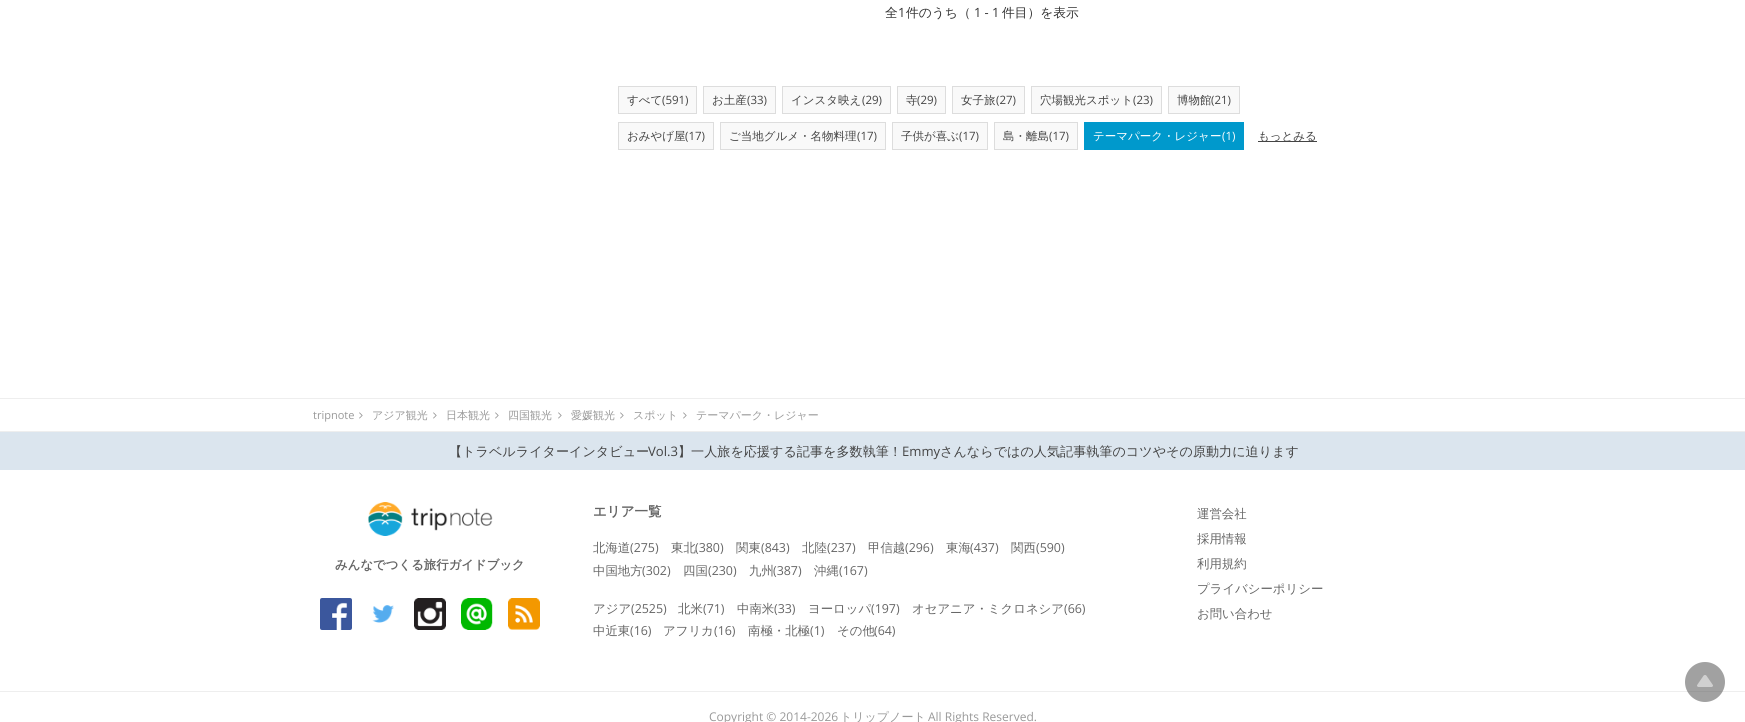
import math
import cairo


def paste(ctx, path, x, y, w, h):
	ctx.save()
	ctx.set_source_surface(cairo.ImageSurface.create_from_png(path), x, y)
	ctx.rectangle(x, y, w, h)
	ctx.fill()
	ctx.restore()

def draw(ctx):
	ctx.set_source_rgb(1, 1, 1)
	ctx.paint()
	ctx.select_font_face('WenQuanYi Zen Hei Medium')
	ctx.set_font_size(12.75)
	ctx.set_source_rgb(0.2, 0.2, 0.2)
	ctx.move_to(885, 17)
	ctx.show_text('全')
	ctx.select_font_face('Open Sans')
	ctx.move_to(898, 17)
	ctx.show_text('1')
	ctx.select_font_face('WenQuanYi Zen Hei Medium')
	ctx.move_to(906, 17)
	ctx.show_text('件のうち（')
	ctx.select_font_face('Open Sans')
	ctx.move_to(974, 17)
	ctx.show_text('1 - 1')
	ctx.select_font_face('WenQuanYi Zen Hei Medium')
	ctx.move_to(1002, 17)
	ctx.show_text('件目）を表示')
	ctx.set_source_rgb(0.976, 0.976, 0.976)
	ctx.rectangle(618.5, 86.5, 78, 27)
	ctx.fill_preserve()
	ctx.set_source_rgb(0.867, 0.867, 0.867)
	ctx.set_line_width(1)
	ctx.stroke()
	ctx.set_font_size(11.5)
	ctx.set_source_rgb(0.267, 0.267, 0.267)
	ctx.move_to(627, 104)
	ctx.show_text('すべて')
	ctx.select_font_face('Open Sans')
	ctx.move_to(662, 104)
	ctx.show_text('(591)')
	ctx.set_source_rgb(0.976, 0.976, 0.976)
	ctx.rectangle(703.5, 86.5, 72, 27)
	ctx.fill_preserve()
	ctx.set_source_rgb(0.867, 0.867, 0.867)
	ctx.stroke()
	ctx.select_font_face('WenQuanYi Zen Hei Medium')
	ctx.set_source_rgb(0.267, 0.267, 0.267)
	ctx.move_to(712, 104)
	ctx.show_text('お土産')
	ctx.select_font_face('Open Sans')
	ctx.move_to(747, 104)
	ctx.show_text('(33)')
	ctx.set_source_rgb(0.976, 0.976, 0.976)
	ctx.rectangle(782.5, 86.5, 108, 27)
	ctx.fill_preserve()
	ctx.set_source_rgb(0.867, 0.867, 0.867)
	ctx.stroke()
	ctx.select_font_face('WenQuanYi Zen Hei Medium')
	ctx.set_source_rgb(0.267, 0.267, 0.267)
	ctx.move_to(791, 104)
	ctx.show_text('インスタ映え')
	ctx.select_font_face('Open Sans')
	ctx.move_to(862, 104)
	ctx.show_text('(29)')
	ctx.set_source_rgb(0.976, 0.976, 0.976)
	ctx.rectangle(897.5, 86.5, 48, 27)
	ctx.fill_preserve()
	ctx.set_source_rgb(0.867, 0.867, 0.867)
	ctx.stroke()
	ctx.select_font_face('WenQuanYi Zen Hei Medium')
	ctx.set_source_rgb(0.267, 0.267, 0.267)
	ctx.move_to(906, 104)
	ctx.show_text('寺')
	ctx.select_font_face('Open Sans')
	ctx.move_to(917, 104)
	ctx.show_text('(29)')
	ctx.set_source_rgb(0.976, 0.976, 0.976)
	ctx.rectangle(952.5, 86.5, 72, 27)
	ctx.fill_preserve()
	ctx.set_source_rgb(0.867, 0.867, 0.867)
	ctx.stroke()
	ctx.select_font_face('WenQuanYi Zen Hei Medium')
	ctx.set_source_rgb(0.267, 0.267, 0.267)
	ctx.move_to(961, 104)
	ctx.show_text('女子旅')
	ctx.select_font_face('Open Sans')
	ctx.move_to(996, 104)
	ctx.show_text('(27)')
	ctx.set_source_rgb(0.976, 0.976, 0.976)
	ctx.rectangle(1031.5, 86.5, 130, 27)
	ctx.fill_preserve()
	ctx.set_source_rgb(0.867, 0.867, 0.867)
	ctx.stroke()
	ctx.select_font_face('WenQuanYi Zen Hei Medium')
	ctx.set_source_rgb(0.267, 0.267, 0.267)
	ctx.move_to(1040, 104)
	ctx.show_text('穴場観光スポット')
	ctx.select_font_face('Open Sans')
	ctx.move_to(1133, 104)
	ctx.show_text('(23)')
	ctx.set_source_rgb(0.976, 0.976, 0.976)
	ctx.rectangle(1168.5, 86.5, 71, 27)
	ctx.fill_preserve()
	ctx.set_source_rgb(0.867, 0.867, 0.867)
	ctx.stroke()
	ctx.select_font_face('WenQuanYi Zen Hei Medium')
	ctx.set_source_rgb(0.267, 0.267, 0.267)
	ctx.move_to(1177, 104)
	ctx.show_text('博物館')
	ctx.select_font_face('Open Sans')
	ctx.move_to(1211, 104)
	ctx.show_text('(21)')
	ctx.set_source_rgb(0.976, 0.976, 0.976)
	ctx.rectangle(618.5, 122.5, 95, 27)
	ctx.fill_preserve()
	ctx.set_source_rgb(0.867, 0.867, 0.867)
	ctx.stroke()
	ctx.select_font_face('WenQuanYi Zen Hei Medium')
	ctx.set_source_rgb(0.267, 0.267, 0.267)
	ctx.move_to(627, 140)
	ctx.show_text('おみやげ屋')
	ctx.select_font_face('Open Sans')
	ctx.move_to(685, 140)
	ctx.show_text('(17)')
	ctx.set_source_rgb(0.976, 0.976, 0.976)
	ctx.rectangle(720.5, 122.5, 165, 27)
	ctx.fill_preserve()
	ctx.set_source_rgb(0.867, 0.867, 0.867)
	ctx.stroke()
	ctx.select_font_face('WenQuanYi Zen Hei Medium')
	ctx.set_source_rgb(0.267, 0.267, 0.267)
	ctx.move_to(729, 140)
	ctx.show_text('ご当地グルメ・名物料理')
	ctx.select_font_face('Open Sans')
	ctx.move_to(857, 140)
	ctx.show_text('(17)')
	ctx.set_source_rgb(0.976, 0.976, 0.976)
	ctx.rectangle(892.5, 122.5, 95, 27)
	ctx.fill_preserve()
	ctx.set_source_rgb(0.867, 0.867, 0.867)
	ctx.stroke()
	ctx.select_font_face('WenQuanYi Zen Hei Medium')
	ctx.set_source_rgb(0.267, 0.267, 0.267)
	ctx.move_to(901, 140)
	ctx.show_text('子供が喜ぶ')
	ctx.select_font_face('Open Sans')
	ctx.move_to(959, 140)
	ctx.show_text('(17)')
	ctx.set_source_rgb(0.976, 0.976, 0.976)
	ctx.rectangle(994.5, 122.5, 83, 27)
	ctx.fill_preserve()
	ctx.set_source_rgb(0.867, 0.867, 0.867)
	ctx.stroke()
	ctx.select_font_face('WenQuanYi Zen Hei Medium')
	ctx.set_source_rgb(0.267, 0.267, 0.267)
	ctx.move_to(1003, 140)
	ctx.show_text('島・離島')
	ctx.select_font_face('Open Sans')
	ctx.move_to(1049, 140)
	ctx.show_text('(17)')
	ctx.set_source_rgb(0, 0.6, 0.8)
	ctx.rectangle(1084, 122, 160, 28)
	ctx.fill()
	ctx.select_font_face('WenQuanYi Zen Hei Medium')
	ctx.set_source_rgb(1, 1, 1)
	ctx.move_to(1093, 140)
	ctx.show_text('テーマパーク・レジャー')
	ctx.select_font_face('Open Sans')
	ctx.move_to(1222, 140)
	ctx.show_text('(1)')
	ctx.set_source_rgb(0.267, 0.267, 0.267)
	ctx.rectangle(1258, 141, 59, 1)
	ctx.fill()
	ctx.select_font_face('WenQuanYi Zen Hei Medium')
	ctx.move_to(1258, 140)
	ctx.show_text('もっとみる')
	ctx.set_source_rgb(0.933, 0.933, 0.933)
	ctx.rectangle(0, 398, 1745, 1)
	ctx.fill()
	ctx.rectangle(0, 431, 1745, 1)
	ctx.fill()
	ctx.select_font_face('Open Sans')
	ctx.set_font_size(11)
	ctx.set_source_rgb(0.6, 0.6, 0.6)
	ctx.move_to(313, 419)
	ctx.show_text('tripnote')
	paste(ctx, 'media/1.png', 359, 412, 4, 7)
	ctx.select_font_face('WenQuanYi Zen Hei Medium')
	ctx.move_to(372, 419)
	ctx.show_text('アジア観光')
	paste(ctx, 'media/1.png', 433, 412, 4, 7)
	ctx.move_to(446, 419)
	ctx.show_text('日本観光')
	paste(ctx, 'media/1.png', 495, 412, 4, 7)
	ctx.move_to(508, 419)
	ctx.show_text('四国観光')
	paste(ctx, 'media/1.png', 558, 412, 4, 7)
	ctx.move_to(571, 419)
	ctx.show_text('愛媛観光')
	paste(ctx, 'media/1.png', 620, 412, 4, 7)
	ctx.move_to(633, 419)
	ctx.show_text('スポット')
	paste(ctx, 'media/1.png', 683, 412, 4, 7)
	ctx.move_to(696, 419)
	ctx.show_text('テーマパーク・レジャー')
	ctx.set_source_rgb(0.859, 0.898, 0.933)
	ctx.rectangle(0, 432, 1745, 38)
	ctx.fill()
	ctx.set_font_size(13.1)
	ctx.set_source_rgb(0.267, 0.267, 0.267)
	ctx.move_to(449, 456)
	ctx.show_text('【トラベルライターインタビュー')
	ctx.select_font_face('Open Sans')
	ctx.move_to(648, 456)
	ctx.show_text('Vol.3')
	ctx.select_font_face('WenQuanYi Zen Hei Medium')
	ctx.move_to(678, 456)
	ctx.show_text('】一人旅を応援する記事を多数執筆！')
	ctx.select_font_face('Open Sans')
	ctx.move_to(902, 456)
	ctx.show_text('Emmy')
	ctx.select_font_face('WenQuanYi Zen Hei Medium')
	ctx.move_to(940, 456)
	ctx.show_text('さんならではの人気記事執筆のコツやその原動力に迫ります')
	paste(ctx, 'media/2.png', 368, 502, 125, 34)
	ctx.select_font_face('WenQuanYi Zen Hei', cairo.FONT_SLANT_NORMAL, cairo.FONT_WEIGHT_BOLD)
	ctx.set_font_size(12.4)
	ctx.set_source_rgb(0.4, 0.4, 0.4)
	ctx.move_to(335, 569)
	ctx.show_text('みんなでつくる旅行ガイドブック')
	paste(ctx, 'media/3.png', 320, 598, 32, 32)
	paste(ctx, 'media/4.png', 372, 605, 22, 18)
	paste(ctx, 'media/5.png', 414, 598, 32, 32)
	paste(ctx, 'media/6.png', 461, 598, 32, 32)
	paste(ctx, 'media/7.png', 508, 598, 32, 32)
	ctx.set_font_size(13.5)
	ctx.move_to(593, 516)
	ctx.show_text('エリア一覧')
	ctx.select_font_face('WenQuanYi Zen Hei Medium')
	ctx.set_font_size(12.4)
	ctx.move_to(593, 552)
	ctx.show_text('北海道')
	ctx.select_font_face('Open Sans')
	ctx.move_to(630, 552)
	ctx.show_text('(275)')
	ctx.select_font_face('WenQuanYi Zen Hei Medium')
	ctx.move_to(671, 552)
	ctx.show_text('東北')
	ctx.select_font_face('Open Sans')
	ctx.move_to(695, 552)
	ctx.show_text('(380)')
	ctx.select_font_face('WenQuanYi Zen Hei Medium')
	ctx.move_to(736, 552)
	ctx.show_text('関東')
	ctx.select_font_face('Open Sans')
	ctx.move_to(761, 552)
	ctx.show_text('(843)')
	ctx.select_font_face('WenQuanYi Zen Hei Medium')
	ctx.move_to(802, 552)
	ctx.show_text('北陸')
	ctx.select_font_face('Open Sans')
	ctx.move_to(827, 552)
	ctx.show_text('(237)')
	ctx.select_font_face('WenQuanYi Zen Hei Medium')
	ctx.move_to(868, 552)
	ctx.show_text('甲信越')
	ctx.select_font_face('Open Sans')
	ctx.move_to(905, 552)
	ctx.show_text('(296)')
	ctx.select_font_face('WenQuanYi Zen Hei Medium')
	ctx.move_to(946, 552)
	ctx.show_text('東海')
	ctx.select_font_face('Open Sans')
	ctx.move_to(970, 552)
	ctx.show_text('(437)')
	ctx.select_font_face('WenQuanYi Zen Hei Medium')
	ctx.move_to(1011, 552)
	ctx.show_text('関西')
	ctx.select_font_face('Open Sans')
	ctx.move_to(1036, 552)
	ctx.show_text('(590)')
	ctx.select_font_face('WenQuanYi Zen Hei Medium')
	ctx.move_to(593, 575)
	ctx.show_text('中国地方')
	ctx.select_font_face('Open Sans')
	ctx.move_to(642, 575)
	ctx.show_text('(302)')
	ctx.select_font_face('WenQuanYi Zen Hei Medium')
	ctx.move_to(683, 575)
	ctx.show_text('四国')
	ctx.select_font_face('Open Sans')
	ctx.move_to(708, 575)
	ctx.show_text('(230)')
	ctx.select_font_face('WenQuanYi Zen Hei Medium')
	ctx.move_to(749, 575)
	ctx.show_text('九州')
	ctx.select_font_face('Open Sans')
	ctx.move_to(773, 575)
	ctx.show_text('(387)')
	ctx.select_font_face('WenQuanYi Zen Hei Medium')
	ctx.move_to(814, 575)
	ctx.show_text('沖縄')
	ctx.select_font_face('Open Sans')
	ctx.move_to(839, 575)
	ctx.show_text('(167)')
	ctx.select_font_face('WenQuanYi Zen Hei Medium')
	ctx.move_to(593, 613)
	ctx.show_text('アジア')
	ctx.select_font_face('Open Sans')
	ctx.move_to(631, 613)
	ctx.show_text('(2525)')
	ctx.select_font_face('WenQuanYi Zen Hei Medium')
	ctx.move_to(678, 613)
	ctx.show_text('北米')
	ctx.select_font_face('Open Sans')
	ctx.move_to(703, 613)
	ctx.show_text('(71)')
	ctx.select_font_face('WenQuanYi Zen Hei Medium')
	ctx.move_to(737, 613)
	ctx.show_text('中南米')
	ctx.select_font_face('Open Sans')
	ctx.move_to(774, 613)
	ctx.show_text('(33)')
	ctx.select_font_face('WenQuanYi Zen Hei Medium')
	ctx.move_to(808, 613)
	ctx.show_text('ヨーロッパ')
	ctx.select_font_face('Open Sans')
	ctx.move_to(871, 613)
	ctx.show_text('(197)')
	ctx.select_font_face('WenQuanYi Zen Hei Medium')
	ctx.move_to(912, 613)
	ctx.show_text('オセアニア・ミクロネシア')
	ctx.select_font_face('Open Sans')
	ctx.move_to(1064, 613)
	ctx.show_text('(66)')
	ctx.select_font_face('WenQuanYi Zen Hei Medium')
	ctx.move_to(593, 635)
	ctx.show_text('中近東')
	ctx.select_font_face('Open Sans')
	ctx.move_to(630, 635)
	ctx.show_text('(16)')
	ctx.select_font_face('WenQuanYi Zen Hei Medium')
	ctx.move_to(663, 635)
	ctx.show_text('アフリカ')
	ctx.select_font_face('Open Sans')
	ctx.move_to(714, 635)
	ctx.show_text('(16)')
	ctx.select_font_face('WenQuanYi Zen Hei Medium')
	ctx.move_to(748, 635)
	ctx.show_text('南極・北極')
	ctx.select_font_face('Open Sans')
	ctx.move_to(810, 635)
	ctx.show_text('(1)')
	ctx.select_font_face('WenQuanYi Zen Hei Medium')
	ctx.move_to(837, 635)
	ctx.show_text('その他')
	ctx.select_font_face('Open Sans')
	ctx.move_to(874, 635)
	ctx.show_text('(64)')
	ctx.select_font_face('WenQuanYi Zen Hei Medium')
	for x, y, s in [
		(1197, 518, '運営会社'),
		(1197, 543, '採用情報'),
		(1197, 568, '利用規約'),
		(1197, 593, 'プライバシーポリシー'),
		(1197, 618, 'お問い合わせ'),
	]:
		ctx.move_to(x, y)
		ctx.show_text(s)
	ctx.set_source_rgb(0.933, 0.933, 0.933)
	ctx.rectangle(0, 691, 1745, 1)
	ctx.fill()
	ctx.select_font_face('Open Sans')
	ctx.set_font_size(12)
	ctx.set_source_rgb(0.6, 0.6, 0.6)
	ctx.move_to(709, 721)
	ctx.show_text('Copyright © 2014-2026')
	ctx.select_font_face('WenQuanYi Zen Hei Medium')
	ctx.move_to(840, 721)
	ctx.show_text('トリップノート')
	ctx.select_font_face('Open Sans')
	ctx.move_to(928, 721)
	ctx.show_text('All Rights Reserved.')
	ctx.set_source_rgba(0.267, 0.267, 0.267, 0.5)
	ctx.new_path()
	ctx.arc(1705, 682, 20, 0, 2 * math.pi)
	ctx.fill()
	paste(ctx, 'media/8.png', 1697, 675, 16, 12)


surface = cairo.ImageSurface(cairo.FORMAT_RGB24, 1745, 722)
ctx = cairo.Context(surface)
options = cairo.FontOptions()
options.set_hint_metrics(cairo.HINT_METRICS_OFF)
options.set_hint_style(cairo.HINT_STYLE_NONE)
ctx.set_font_options(options)
ctx.set_miter_limit(4)
draw(ctx)
surface.write_to_png('image.png')
